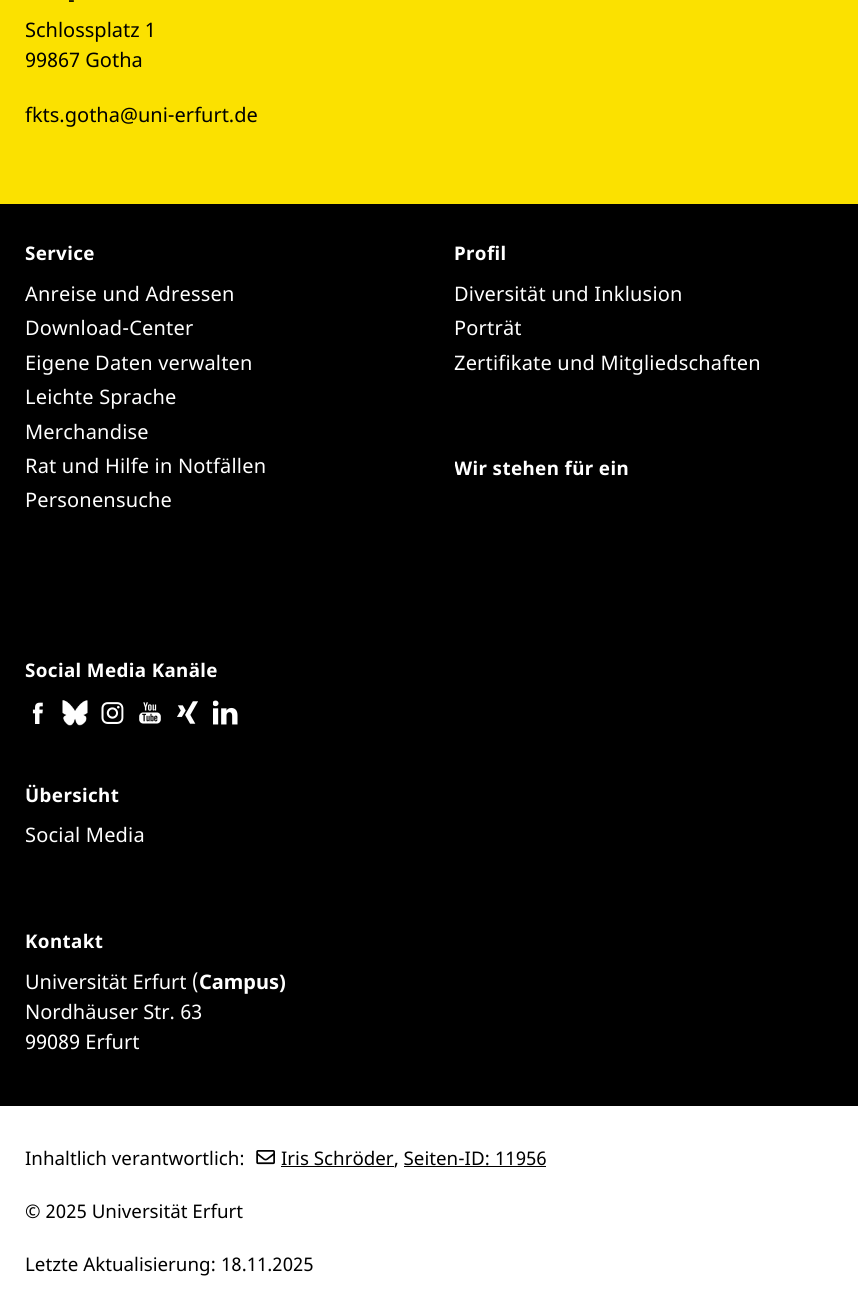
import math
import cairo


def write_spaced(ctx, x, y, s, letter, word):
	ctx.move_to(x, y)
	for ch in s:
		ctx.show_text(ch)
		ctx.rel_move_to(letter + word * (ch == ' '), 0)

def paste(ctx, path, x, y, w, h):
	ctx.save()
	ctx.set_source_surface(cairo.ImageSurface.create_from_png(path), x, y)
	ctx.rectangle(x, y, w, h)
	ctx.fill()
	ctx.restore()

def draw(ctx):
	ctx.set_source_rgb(1, 1, 1)
	ctx.paint()
	ctx.set_source_rgb(0.984, 0.882, 0)
	ctx.rectangle(0, 0, 858, 204)
	ctx.fill()
	ctx.select_font_face('Noto Sans')
	ctx.set_font_size(20)
	ctx.set_source_rgb(0, 0, 0)
	for x, y, s in [
		(68, 7, '-'),
		(25, 37, 'Schlossplatz 1'),
		(25, 67, '99867 Gotha'),
		(25, 122, 'fkts.gotha@uni-erfurt.de'),
	]:
		ctx.move_to(x, y)
		ctx.show_text(s)
	ctx.rectangle(0, 204, 858, 902)
	ctx.fill()
	ctx.select_font_face('Noto Sans', cairo.FONT_SLANT_NORMAL, cairo.FONT_WEIGHT_BOLD)
	ctx.set_font_size(18.75)
	ctx.set_source_rgb(1, 1, 1)
	write_spaced(ctx, 25, 260, 'Service', 0.4, 0)
	ctx.select_font_face('Noto Sans')
	ctx.set_font_size(20)
	for x, y, s in [
		(25, 301, 'Anreise und Adressen'),
		(25, 335, 'Download-Center'),
		(25, 370, 'Eigene Daten verwalten'),
		(25, 404, 'Leichte Sprache'),
		(25, 439, 'Merchandise'),
		(25, 473, 'Rat und Hilfe in Notfällen'),
		(25, 507, 'Personensuche'),
	]:
		write_spaced(ctx, x, y, s, 0.2, 0)
	ctx.select_font_face('Noto Sans', cairo.FONT_SLANT_NORMAL, cairo.FONT_WEIGHT_BOLD)
	ctx.set_font_size(18.75)
	write_spaced(ctx, 454, 260, 'Profil', 0.4, 0)
	ctx.select_font_face('Noto Sans')
	ctx.set_font_size(20)
	for x, y, s in [
		(454, 301, 'Diversität und Inklusion'),
		(454, 335, 'Porträt'),
		(454, 370, 'Zertifikate und Mitgliedschaften'),
	]:
		write_spaced(ctx, x, y, s, 0.2, 0)
	ctx.save()
	ctx.rectangle(455, 456, 379, 153)
	ctx.clip()
	ctx.select_font_face('Noto Sans', cairo.FONT_SLANT_NORMAL, cairo.FONT_WEIGHT_BOLD)
	ctx.set_font_size(18.75)
	write_spaced(ctx, 454, 475, 'Wir stehen für ein', 0.4, 0)
	ctx.restore()
	ctx.select_font_face('Noto Sans', cairo.FONT_SLANT_NORMAL, cairo.FONT_WEIGHT_BOLD)
	ctx.set_font_size(18.75)
	write_spaced(ctx, 25, 677, 'Social Media Kanäle', 0.4, 0)
	paste(ctx, 'media/1.png', 32, 702, 11, 22)
	paste(ctx, 'media/2.png', 62, 700, 26, 26)
	paste(ctx, 'media/3.png', 101, 702, 23, 22)
	paste(ctx, 'media/4.png', 139, 702, 22, 22)
	paste(ctx, 'media/5.png', 177, 701, 21, 23)
	paste(ctx, 'media/6.png', 213, 700, 25, 25)
	write_spaced(ctx, 25, 802, 'Übersicht', 0.4, 0)
	ctx.select_font_face('Noto Sans')
	ctx.set_font_size(20)
	write_spaced(ctx, 25, 842, 'Social Media', 0.2, 0)
	ctx.select_font_face('Noto Sans', cairo.FONT_SLANT_NORMAL, cairo.FONT_WEIGHT_BOLD)
	ctx.set_font_size(18.75)
	write_spaced(ctx, 25, 948, 'Kontakt', 0.4, 0)
	ctx.select_font_face('Noto Sans')
	ctx.set_font_size(20)
	ctx.move_to(25, 989)
	ctx.show_text('Universität Erfurt (')
	ctx.select_font_face('Noto Sans', cairo.FONT_SLANT_NORMAL, cairo.FONT_WEIGHT_BOLD)
	ctx.move_to(199, 989)
	ctx.show_text('Campus)')
	ctx.select_font_face('Noto Sans')
	ctx.move_to(25, 1019)
	ctx.show_text('Nordhäuser Str. 63')
	ctx.move_to(25, 1049)
	ctx.show_text('99089 Erfurt')
	ctx.set_font_size(18.75)
	ctx.set_source_rgb(0, 0, 0)
	ctx.move_to(25, 1165)
	ctx.show_text('Inhaltlich verantwortlich:')
	paste(ctx, 'media/7.png', 256, 1150, 19, 15)
	ctx.move_to(281, 1165)
	ctx.show_text('Iris Schröder')
	ctx.rectangle(281, 1166, 113, 1)
	ctx.fill()
	ctx.move_to(394, 1165)
	ctx.show_text(', Seiten-ID: 11956')
	ctx.rectangle(404, 1166, 142, 1)
	ctx.fill()
	ctx.move_to(25, 1218)
	ctx.show_text('© 2025 Universität Erfurt')
	ctx.move_to(25, 1271)
	ctx.show_text('Letzte Aktualisierung: 18.11.2025')


surface = cairo.ImageSurface(cairo.FORMAT_RGB24, 858, 1300)
ctx = cairo.Context(surface)
options = cairo.FontOptions()
options.set_hint_metrics(cairo.HINT_METRICS_OFF)
options.set_hint_style(cairo.HINT_STYLE_NONE)
ctx.set_font_options(options)
ctx.set_miter_limit(4)
draw(ctx)
surface.write_to_png('image.png')
